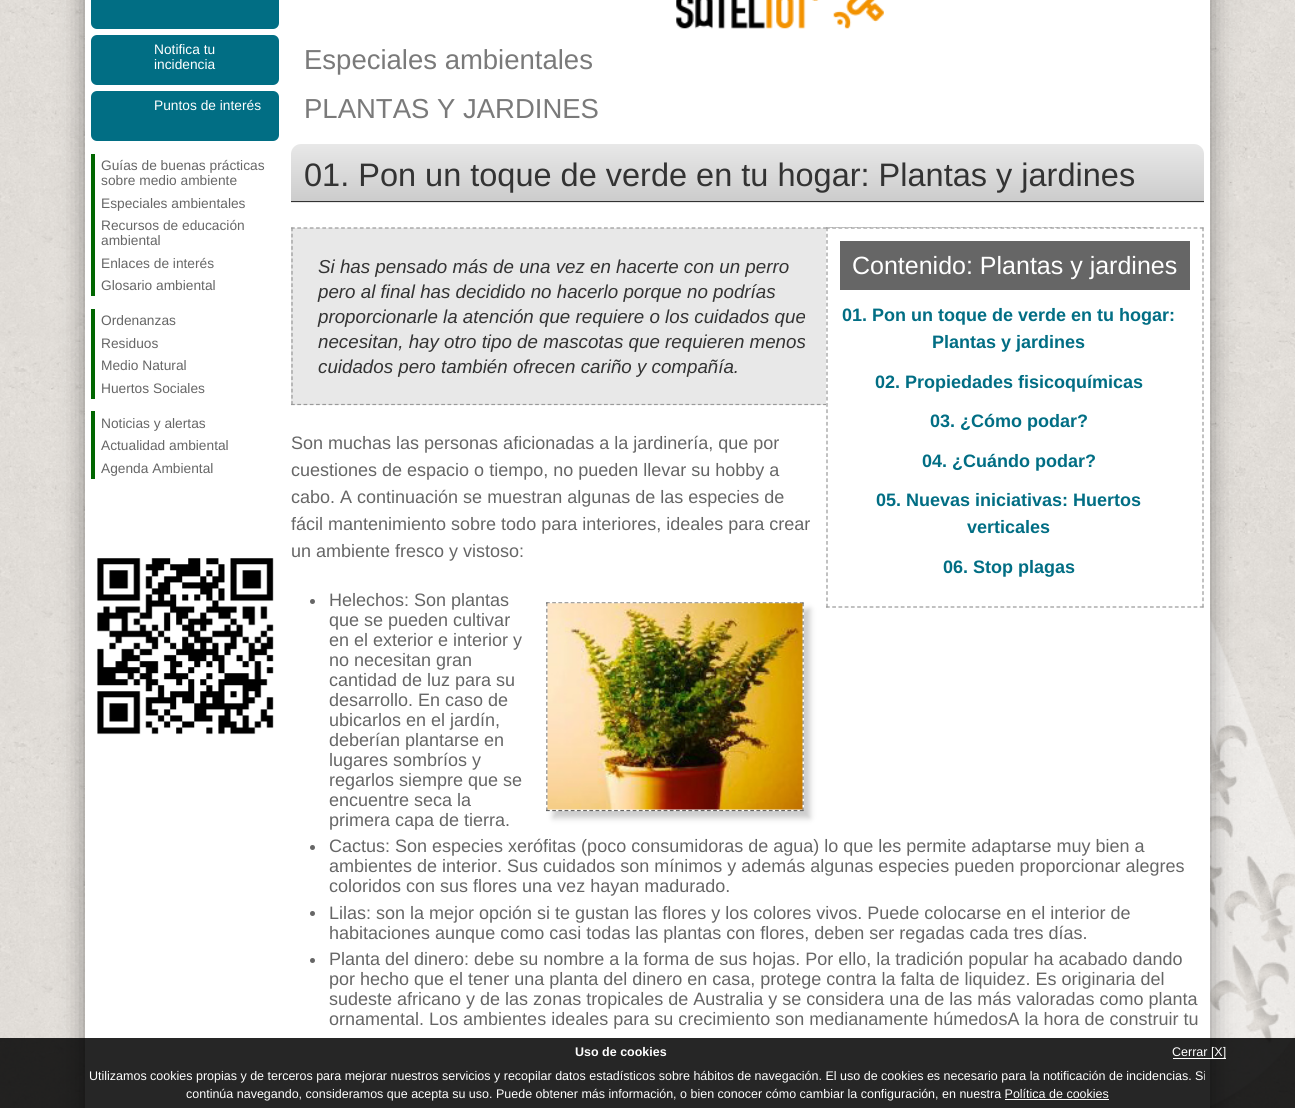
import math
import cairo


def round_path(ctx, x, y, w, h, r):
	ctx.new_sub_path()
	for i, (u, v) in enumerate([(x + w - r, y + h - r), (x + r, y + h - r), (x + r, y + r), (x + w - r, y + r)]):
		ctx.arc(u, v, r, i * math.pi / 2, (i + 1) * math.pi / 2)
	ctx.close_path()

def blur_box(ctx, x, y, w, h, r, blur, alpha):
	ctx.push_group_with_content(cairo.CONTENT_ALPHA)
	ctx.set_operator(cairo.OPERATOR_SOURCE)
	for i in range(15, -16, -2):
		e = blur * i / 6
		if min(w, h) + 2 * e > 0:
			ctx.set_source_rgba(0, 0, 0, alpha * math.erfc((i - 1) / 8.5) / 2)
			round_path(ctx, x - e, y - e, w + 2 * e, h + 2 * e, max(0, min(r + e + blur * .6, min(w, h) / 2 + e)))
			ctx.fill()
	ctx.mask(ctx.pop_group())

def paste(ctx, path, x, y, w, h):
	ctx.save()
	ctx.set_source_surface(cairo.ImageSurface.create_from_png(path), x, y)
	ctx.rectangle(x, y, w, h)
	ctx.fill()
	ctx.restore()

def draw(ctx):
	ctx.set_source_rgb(1, 1, 1)
	ctx.paint()
	paste(ctx, 'media/1.png', 0, 0, 1295, 1108)
	ctx.set_source_rgb(0, 0, 0)
	blur_box(ctx, 85, -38, 1125, 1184, 0, 12.5, 0.4)
	ctx.set_source_rgb(1, 1, 1)
	ctx.rectangle(85, 0, 1125, 1108)
	ctx.fill()
	paste(ctx, 'media/2.png', 676, 0, 208, 29)
	ctx.set_source_rgb(0.004, 0.431, 0.518)
	round_path(ctx, 91, -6, 188, 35, 6)
	ctx.fill()
	round_path(ctx, 91, 35, 188, 50, 6)
	ctx.fill()
	ctx.select_font_face('Liberation Sans')
	ctx.set_font_size(13.75)
	ctx.set_source_rgb(1, 1, 1)
	ctx.move_to(154, 54)
	ctx.show_text('Notifica tu')
	ctx.move_to(154, 69)
	ctx.show_text('incidencia')
	ctx.set_source_rgb(0.004, 0.431, 0.518)
	round_path(ctx, 91, 91, 188, 50, 6)
	ctx.fill()
	ctx.set_source_rgb(1, 1, 1)
	ctx.move_to(154, 110)
	ctx.show_text('Puntos de interés')
	ctx.set_source_rgb(0, 0.4, 0)
	ctx.rectangle(91, 154, 4, 142)
	ctx.fill()
	ctx.set_source_rgb(0.4, 0.4, 0.4)
	for x, y, s in [
		(101, 170, 'Guías de buenas prácticas'),
		(101, 185, 'sobre medio ambiente'),
		(101, 208, 'Especiales ambientales'),
		(101, 230, 'Recursos de educación'),
		(101, 245, 'ambiental'),
		(101, 268, 'Enlaces de interés'),
		(101, 290, 'Glosario ambiental'),
	]:
		ctx.move_to(x, y)
		ctx.show_text(s)
	ctx.set_source_rgb(0, 0.4, 0)
	ctx.rectangle(91, 309, 4, 90)
	ctx.fill()
	ctx.set_source_rgb(0.4, 0.4, 0.4)
	for x, y, s in [
		(101, 325, 'Ordenanzas'),
		(101, 348, 'Residuos'),
		(101, 370, 'Medio Natural'),
		(101, 393, 'Huertos Sociales'),
	]:
		ctx.move_to(x, y)
		ctx.show_text(s)
	ctx.set_source_rgb(0, 0.4, 0)
	ctx.rectangle(91, 411, 4, 68)
	ctx.fill()
	ctx.set_source_rgb(0.4, 0.4, 0.4)
	for x, y, s in [
		(101, 428, 'Noticias y alertas'),
		(101, 450, 'Actualidad ambiental'),
		(101, 473, 'Agenda Ambiental'),
	]:
		ctx.move_to(x, y)
		ctx.show_text(s)
	paste(ctx, 'media/3.png', 97, 558, 177, 177)
	ctx.set_font_size(27.5)
	ctx.set_source_rgb(0.478, 0.478, 0.478)
	ctx.move_to(304, 69)
	ctx.show_text('Especiales ambientales')
	ctx.move_to(304, 118)
	ctx.show_text('PLANTAS Y JARDINES')
	gradient = cairo.LinearGradient(748, 144, 748, 201)
	gradient.add_color_stop_rgba(0, 0.91, 0.91, 0.91, 1)
	gradient.add_color_stop_rgba(1, 0.8, 0.8, 0.8, 1)
	ctx.set_source(gradient)
	ctx.new_path()
	ctx.move_to(301, 144)
	ctx.line_to(1194, 144)
	ctx.curve_to(1199.5, 144, 1204, 148.5, 1204, 154)
	ctx.line_to(1204, 201)
	ctx.line_to(291, 201)
	ctx.line_to(291, 154)
	ctx.curve_to(291, 148.5, 295.5, 144, 301, 144)
	ctx.close_path()
	ctx.fill()
	gradient = cairo.LinearGradient(748, 201, 748, 259)
	gradient.add_color_stop_rgba(0, 0.91, 0.91, 0.91, 1)
	gradient.add_color_stop_rgba(1, 0.8, 0.8, 0.8, 1)
	ctx.set_source(gradient)
	ctx.rectangle(291, 202, 913, 1)
	ctx.fill()
	ctx.set_source_rgb(0.2, 0.2, 0.2)
	ctx.rectangle(291, 201, 913, 1)
	ctx.fill()
	ctx.set_font_size(32.5)
	ctx.move_to(304, 186)
	ctx.show_text('01. Pon un toque de verde en tu hogar: Plantas y jardines')
	ctx.set_source_rgb(0.91, 0.91, 0.91)
	ctx.rectangle(291, 228, 535, 177)
	ctx.fill()
	ctx.new_path()
	ctx.move_to(291, 228)
	ctx.line_to(1154, 228)
	ctx.set_source_rgb(0.6, 0.6, 0.6)
	ctx.set_line_width(1.2)
	ctx.set_dash([3.75, 2.51])
	ctx.stroke()
	ctx.new_path()
	ctx.move_to(1153, 227.5)
	ctx.line_to(1153, 405)
	ctx.set_dash([3.75, 2.45])
	ctx.stroke()
	ctx.new_path()
	ctx.move_to(291, 404.5)
	ctx.line_to(1154, 404.5)
	ctx.set_dash([3.75, 2.51])
	ctx.stroke()
	ctx.new_path()
	ctx.move_to(292, 227.5)
	ctx.line_to(292, 405)
	ctx.set_dash([3.75, 2.45])
	ctx.stroke()
	ctx.select_font_face('Liberation Sans', cairo.FONT_SLANT_ITALIC)
	ctx.set_font_size(18.75)
	ctx.set_source_rgb(0.2, 0.2, 0.2)
	for x, y, s in [
		(318, 273, 'Si has pensado más de una vez en hacerte con un perro'),
		(318, 298, 'pero al final has decidido no hacerlo porque no podrías'),
		(318, 323, 'proporcionarle la atención que requiere o los cuidados que'),
		(318, 348, 'necesitan, hay otro tipo de mascotas que requieren menos'),
		(318, 373, 'cuidados pero también ofrecen cariño y compañía.'),
	]:
		ctx.move_to(x, y)
		ctx.show_text(s)
	ctx.set_source_rgb(1, 1, 1)
	ctx.rectangle(826, 228, 328, 178)
	ctx.fill()
	ctx.new_path()
	ctx.move_to(826, 228)
	ctx.line_to(1204, 228)
	ctx.set_source_rgb(0.6, 0.6, 0.6)
	ctx.set_dash([3.75, 2.48])
	ctx.stroke()
	ctx.new_path()
	ctx.move_to(1203, 227.5)
	ctx.line_to(1203, 607.5)
	ctx.set_dash([3.75, 2.52])
	ctx.stroke()
	ctx.new_path()
	ctx.move_to(826, 607)
	ctx.line_to(1204, 607)
	ctx.set_dash([3.75, 2.48])
	ctx.stroke()
	ctx.new_path()
	ctx.move_to(827, 227.5)
	ctx.line_to(827, 607.5)
	ctx.set_dash([3.75, 2.52])
	ctx.stroke()
	ctx.set_source_rgb(0.4, 0.4, 0.4)
	ctx.rectangle(840, 241, 350, 49)
	ctx.fill()
	ctx.select_font_face('Liberation Sans')
	ctx.set_font_size(25)
	ctx.set_source_rgb(1, 1, 1)
	ctx.move_to(852, 274)
	ctx.show_text('Contenido: Plantas y jardines')
	ctx.select_font_face('Liberation Sans', cairo.FONT_SLANT_NORMAL, cairo.FONT_WEIGHT_BOLD)
	ctx.set_font_size(18)
	ctx.set_source_rgb(0.004, 0.431, 0.518)
	for x, y, s in [
		(842, 321, '01. Pon un toque de verde en tu hogar:'),
		(932, 348, 'Plantas y jardines'),
		(875, 388, '02. Propiedades fisicoquímicas'),
		(930, 427, '03. ¿Cómo podar?'),
		(922, 467, '04. ¿Cuándo podar?'),
		(876, 506, '05. Nuevas iniciativas: Huertos'),
		(967, 533, 'verticales'),
		(943, 573, '06. Stop plagas'),
	]:
		ctx.move_to(x, y)
		ctx.show_text(s)
	ctx.select_font_face('Liberation Sans')
	ctx.set_source_rgb(0.4, 0.4, 0.4)
	for x, y, s in [
		(291, 449, 'Son muchas las personas aficionadas a la jardinería, que por'),
		(291, 476, 'cuestiones de espacio o tiempo, no pueden llevar su hobby a'),
		(291, 503, 'cabo. A continuación se muestran algunas de las especies de'),
		(291, 530, 'fácil mantenimiento sobre todo para interiores, ideales para crear'),
		(291, 557, 'un ambiente fresco y vistoso:'),
	]:
		ctx.move_to(x, y)
		ctx.show_text(s)
	ctx.new_path()
	ctx.arc(312.5, 601.5, 2.5, 0, 2 * math.pi)
	ctx.fill()
	for x, y, s in [
		(329, 606, 'Helechos: Son plantas'),
		(329, 626, 'que se pueden cultivar'),
		(329, 646, 'en el exterior e interior y'),
		(329, 666, 'no necesitan gran'),
		(329, 686, 'cantidad de luz para su'),
		(329, 706, 'desarrollo. En caso de'),
		(329, 726, 'ubicarlos en el jardín,'),
		(329, 746, 'deberían plantarse en'),
		(329, 766, 'lugares sombríos y'),
		(329, 786, 'regarlos siempre que se'),
		(329, 806, 'encuentre seca la'),
		(329, 826, 'primera capa de tierra.'),
	]:
		ctx.move_to(x, y)
		ctx.show_text(s)
	ctx.save()
	ctx.set_fill_rule(cairo.FILL_RULE_EVEN_ODD)
	ctx.new_path()
	ctx.move_to(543, 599)
	ctx.line_to(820, 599)
	ctx.line_to(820, 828)
	ctx.line_to(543, 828)
	ctx.close_path()
	ctx.move_to(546, 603)
	ctx.line_to(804, 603)
	ctx.line_to(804, 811)
	ctx.line_to(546, 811)
	ctx.close_path()
	ctx.clip()
	ctx.set_source_rgb(0.8, 0.8, 0.8)
	blur_box(ctx, 553, 609, 257, 209, 0, 3, 1)
	ctx.restore()
	ctx.new_path()
	ctx.move_to(546, 603)
	ctx.line_to(804, 603)
	ctx.set_dash([3.75, 2.44])
	ctx.stroke()
	ctx.new_path()
	ctx.move_to(803, 602.5)
	ctx.line_to(803, 811)
	ctx.set_dash([3.75, 2.46])
	ctx.stroke()
	ctx.new_path()
	ctx.move_to(546, 810.5)
	ctx.line_to(804, 810.5)
	ctx.set_dash([3.75, 2.44])
	ctx.stroke()
	ctx.new_path()
	ctx.move_to(547, 602.5)
	ctx.line_to(547, 811)
	ctx.set_dash([3.75, 2.46])
	ctx.stroke()
	paste(ctx, 'media/4.png', 547, 603, 256, 207)
	ctx.arc(312.5, 847.5, 2.5, 0, 2 * math.pi)
	ctx.fill()
	for x, y, s in [
		(329, 852, 'Cactus: Son especies xerófitas (poco consumidoras de agua) lo que les permite adaptarse muy bien a'),
		(329, 872, 'ambientes de interior. Sus cuidados son mínimos y además algunas especies pueden proporcionar alegres'),
		(329, 892, 'coloridos con sus flores una vez hayan madurado.'),
	]:
		ctx.move_to(x, y)
		ctx.show_text(s)
	ctx.new_path()
	ctx.arc(312.5, 913.5, 2.5, 0, 2 * math.pi)
	ctx.fill()
	ctx.move_to(329, 919)
	ctx.show_text('Lilas: son la mejor opción si te gustan las flores y los colores vivos. Puede colocarse en el interior de')
	ctx.move_to(329, 939)
	ctx.show_text('habitaciones aunque como casi todas las plantas con flores, deben ser regadas cada tres días.')
	ctx.new_path()
	ctx.arc(312.5, 960.5, 2.5, 0, 2 * math.pi)
	ctx.fill()
	for x, y, s in [
		(329, 965, 'Planta del dinero: debe su nombre a la forma de sus hojas. Por ello, la tradición popular ha acabado dando'),
		(329, 985, 'por hecho que el tener una planta del dinero en casa, protege contra la falta de liquidez. Es originaria del'),
		(329, 1005, 'sudeste africano y de las zonas tropicales de Australia y se considera una de las más valoradas como planta'),
		(329, 1025, 'ornamental. Los ambientes ideales para su crecimiento son medianamente húmedosA la hora de construir tu'),
	]:
		ctx.move_to(x, y)
		ctx.show_text(s)
	ctx.set_source_rgba(0, 0, 0, 0.85)
	ctx.rectangle(0, 1038, 1295, 70)
	ctx.fill()
	ctx.select_font_face('Liberation Sans', cairo.FONT_SLANT_NORMAL, cairo.FONT_WEIGHT_BOLD)
	ctx.set_font_size(12.5)
	ctx.set_source_rgb(1, 1, 1)
	ctx.move_to(575, 1056)
	ctx.show_text('Uso de cookies')
	ctx.rectangle(1173, 1058, 53, 1)
	ctx.fill()
	ctx.select_font_face('Liberation Sans')
	for x, y, s in [
		(1172, 1056, 'Cerrar [X]'),
		(89, 1080, 'Utilizamos cookies propias y de terceros para mejorar nuestros servicios y recopilar datos estadísticos sobre hábitos de navegación. El uso de cookies es necesario para la notificación de incidencias. Si'),
		(186, 1098, 'continúa navegando, consideramos que acepta su uso. Puede obtener más información, o bien conocer cómo cambiar la configuración, en nuestra Política de cookies'),
	]:
		ctx.move_to(x, y)
		ctx.show_text(s)
	ctx.rectangle(1005, 1099, 104, 1)
	ctx.fill()


surface = cairo.ImageSurface(cairo.FORMAT_RGB24, 1295, 1108)
ctx = cairo.Context(surface)
options = cairo.FontOptions()
options.set_hint_metrics(cairo.HINT_METRICS_OFF)
options.set_hint_style(cairo.HINT_STYLE_NONE)
ctx.set_font_options(options)
ctx.set_miter_limit(4)
draw(ctx)
surface.write_to_png('image.png')
